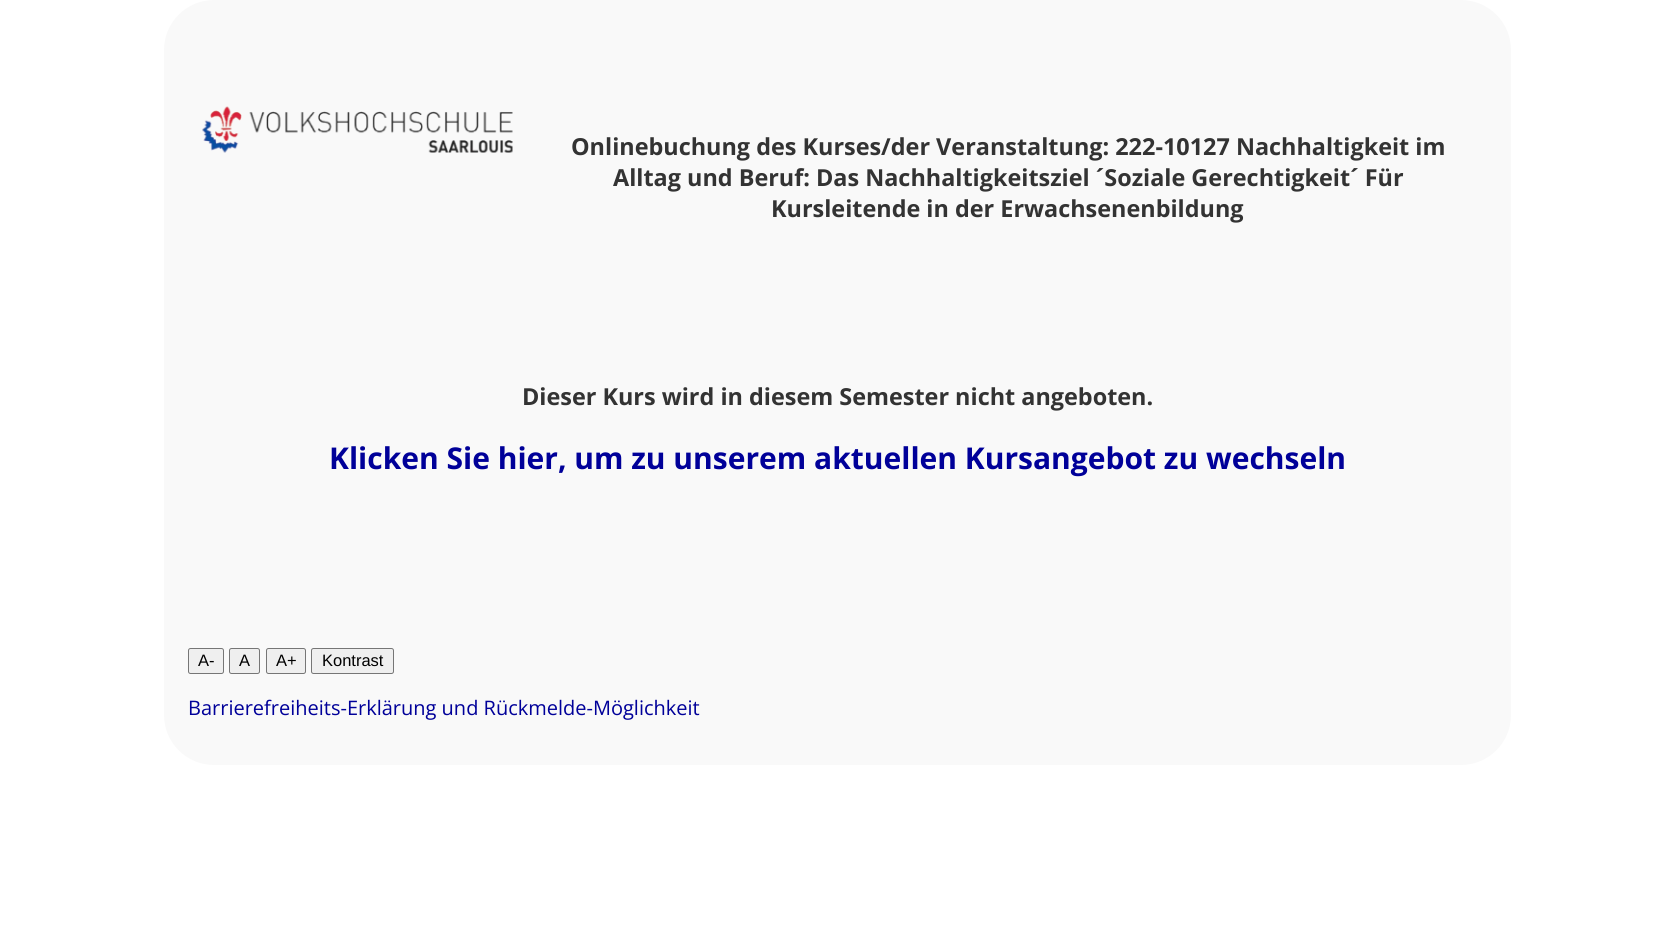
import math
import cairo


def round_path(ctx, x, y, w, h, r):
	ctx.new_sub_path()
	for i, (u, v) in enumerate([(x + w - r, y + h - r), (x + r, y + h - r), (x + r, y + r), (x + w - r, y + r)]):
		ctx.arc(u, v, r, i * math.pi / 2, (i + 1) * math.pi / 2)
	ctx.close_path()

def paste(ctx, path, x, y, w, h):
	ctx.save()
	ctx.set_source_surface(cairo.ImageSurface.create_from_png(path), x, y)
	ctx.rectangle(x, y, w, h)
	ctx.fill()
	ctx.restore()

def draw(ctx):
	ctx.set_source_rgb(1, 1, 1)
	ctx.paint()
	ctx.set_source_rgb(0.973, 0.973, 0.973)
	round_path(ctx, 164, 0, 1347, 765, 50)
	ctx.fill()
	paste(ctx, 'media/1.png', 202, 106, 311, 47)
	ctx.select_font_face('Open Sans', cairo.FONT_SLANT_NORMAL, cairo.FONT_WEIGHT_BOLD)
	ctx.set_font_size(23.4)
	ctx.set_source_rgb(0.2, 0.2, 0.2)
	for x, y, s in [
		(571, 155, 'Onlinebuchung des Kurses/der Veranstaltung: 222-10127 Nachhaltigkeit im'),
		(613, 186, 'Alltag und Beruf: Das Nachhaltigkeitsziel ´Soziale Gerechtigkeit´ Für'),
		(771, 217, 'Kursleitende in der Erwachsenenbildung'),
		(522, 405, 'Dieser Kurs wird in diesem Semester nicht angeboten.'),
	]:
		ctx.move_to(x, y)
		ctx.show_text(s)
	ctx.set_font_size(30)
	ctx.set_source_rgb(0, 0, 0.6)
	ctx.move_to(329, 469)
	ctx.show_text('Klicken Sie hier, um zu unserem aktuellen Kursangebot zu wechseln')
	ctx.set_source_rgb(0.937, 0.937, 0.937)
	round_path(ctx, 188.5, 648.5, 35, 25, 2)
	ctx.fill_preserve()
	ctx.set_source_rgb(0.463, 0.463, 0.463)
	ctx.set_line_width(1)
	ctx.stroke()
	ctx.select_font_face('Liberation Sans')
	ctx.set_font_size(16.5)
	ctx.set_source_rgb(0, 0, 0)
	ctx.move_to(198, 666)
	ctx.show_text('A-')
	ctx.set_source_rgb(0.937, 0.937, 0.937)
	round_path(ctx, 229.5, 648.5, 30, 25, 2)
	ctx.fill_preserve()
	ctx.set_source_rgb(0.463, 0.463, 0.463)
	ctx.stroke()
	ctx.set_source_rgb(0, 0, 0)
	ctx.move_to(239, 666)
	ctx.show_text('A')
	ctx.set_source_rgb(0.937, 0.937, 0.937)
	round_path(ctx, 266.5, 648.5, 39, 25, 2)
	ctx.fill_preserve()
	ctx.set_source_rgb(0.463, 0.463, 0.463)
	ctx.stroke()
	ctx.set_source_rgb(0, 0, 0)
	ctx.move_to(276, 666)
	ctx.show_text('A+')
	ctx.set_source_rgb(0.937, 0.937, 0.937)
	round_path(ctx, 311.5, 648.5, 82, 25, 2)
	ctx.fill_preserve()
	ctx.set_source_rgb(0.463, 0.463, 0.463)
	ctx.stroke()
	ctx.set_source_rgb(0, 0, 0)
	ctx.move_to(322, 666)
	ctx.show_text('Kontrast')
	ctx.select_font_face('Open Sans')
	ctx.set_font_size(20)
	ctx.set_source_rgb(0, 0, 0.6)
	ctx.move_to(188, 715)
	ctx.show_text('Barrierefreiheits-Erklärung und Rückmelde-Möglichkeit')


surface = cairo.ImageSurface(cairo.FORMAT_RGB24, 1674, 932)
ctx = cairo.Context(surface)
options = cairo.FontOptions()
options.set_hint_metrics(cairo.HINT_METRICS_OFF)
options.set_hint_style(cairo.HINT_STYLE_NONE)
ctx.set_font_options(options)
ctx.set_miter_limit(4)
draw(ctx)
surface.write_to_png('image.png')
